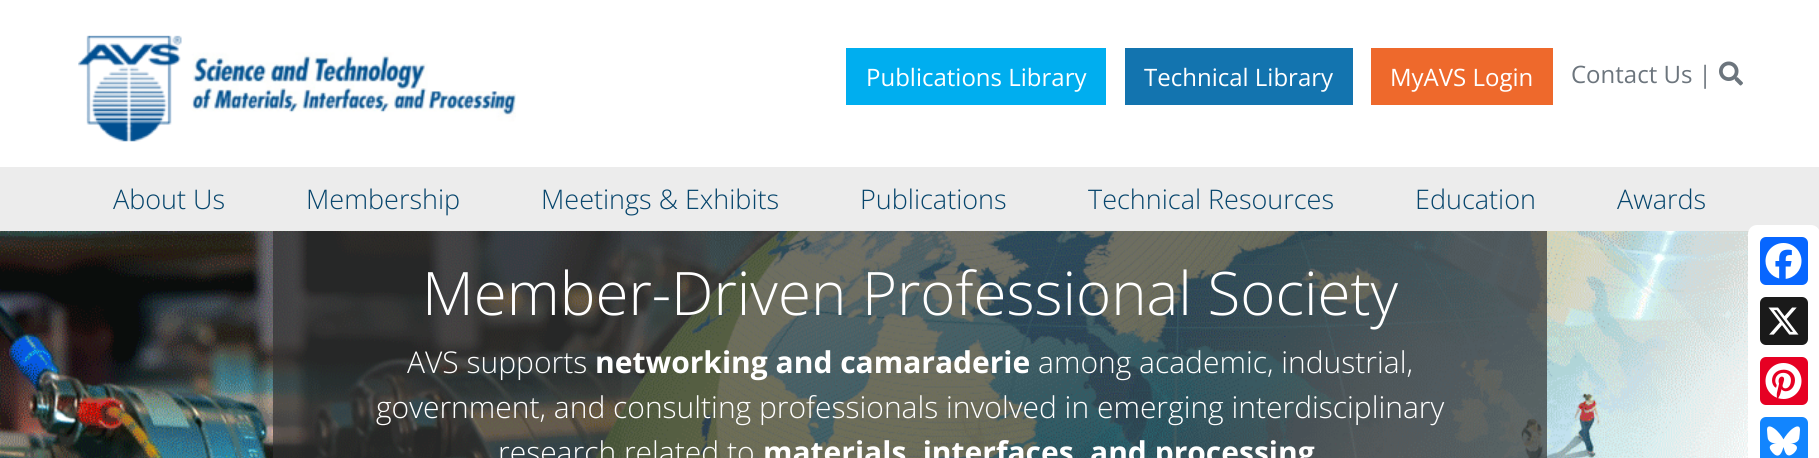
import math
import cairo


def round_path(ctx, x, y, w, h, r):
	ctx.new_sub_path()
	for i, (u, v) in enumerate([(x + w - r, y + h - r), (x + r, y + h - r), (x + r, y + r), (x + w - r, y + r)]):
		ctx.arc(u, v, r, i * math.pi / 2, (i + 1) * math.pi / 2)
	ctx.close_path()

def paste(ctx, path, x, y, w, h):
	ctx.save()
	ctx.set_source_surface(cairo.ImageSurface.create_from_png(path), x, y)
	ctx.rectangle(x, y, w, h)
	ctx.fill()
	ctx.restore()

def draw(ctx):
	ctx.set_source_rgb(1, 1, 1)
	ctx.paint()
	paste(ctx, 'media/1.png', 78, 35, 438, 107)
	ctx.set_source_rgb(0, 0.682, 0.937)
	ctx.rectangle(846, 48, 260, 57)
	ctx.fill()
	ctx.select_font_face('Open Sans')
	ctx.set_font_size(24)
	ctx.set_source_rgb(1, 1, 1)
	ctx.move_to(866, 86)
	ctx.show_text('Publications Library')
	ctx.set_source_rgb(0.078, 0.455, 0.686)
	ctx.rectangle(1125, 48, 228, 57)
	ctx.fill()
	ctx.set_source_rgb(1, 1, 1)
	ctx.move_to(1144, 86)
	ctx.show_text('Technical Library')
	ctx.set_source_rgb(0.933, 0.412, 0.173)
	ctx.rectangle(1371, 48, 182, 57)
	ctx.fill()
	ctx.set_source_rgb(1, 1, 1)
	ctx.move_to(1390, 86)
	ctx.show_text('MyAVS Login')
	ctx.set_source_rgb(0.424, 0.459, 0.49)
	ctx.move_to(1571, 83)
	ctx.show_text('Contact Us |')
	paste(ctx, 'media/2.png', 1719, 61, 24, 25)
	ctx.set_source_rgb(0.922, 0.922, 0.922)
	ctx.rectangle(0, 167, 1819, 64)
	ctx.fill()
	ctx.select_font_face('Open Sans Light')
	ctx.set_font_size(27)
	ctx.set_source_rgb(0.027, 0.271, 0.424)
	for x, y, s in [
		(113, 209, 'About Us'),
		(306, 209, 'Membership'),
		(541, 209, 'Meetings & Exhibits'),
		(860, 209, 'Publications'),
		(1088, 209, 'Technical Resources'),
		(1415, 209, 'Education'),
		(1617, 209, 'Awards'),
	]:
		ctx.move_to(x, y)
		ctx.show_text(s)
	paste(ctx, 'media/3.png', 0, 231, 1749, 227)
	ctx.set_source_rgba(0.196, 0.196, 0.196, 0.7)
	ctx.rectangle(273, 231, 1274, 227)
	ctx.fill()
	ctx.set_font_size(60)
	ctx.set_source_rgb(1, 1, 1)
	ctx.move_to(422, 315)
	ctx.show_text('Member-Driven Professional Society')
	ctx.set_font_size(30)
	ctx.move_to(407, 373)
	ctx.show_text('AVS supports')
	ctx.select_font_face('Open Sans', cairo.FONT_SLANT_NORMAL, cairo.FONT_WEIGHT_BOLD)
	ctx.move_to(595, 373)
	ctx.show_text('networking and camaraderie')
	ctx.select_font_face('Open Sans Light')
	for x, y, s in [
		(1038, 373, 'among academic, industrial,'),
		(376, 418, 'government, and consulting professionals involved in emerging interdisciplinary'),
		(498, 463, 'research related to'),
	]:
		ctx.move_to(x, y)
		ctx.show_text(s)
	ctx.select_font_face('Open Sans', cairo.FONT_SLANT_NORMAL, cairo.FONT_WEIGHT_BOLD)
	ctx.move_to(763, 463)
	ctx.show_text('materials, interfaces, and processing')
	round_path(ctx, 1748, 225, 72, 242, 9)
	ctx.fill()
	ctx.set_source_rgb(0.031, 0.4, 1)
	round_path(ctx, 1760, 237, 48, 48, 6)
	ctx.fill()
	paste(ctx, 'media/4.png', 1765, 243, 37, 36)
	ctx.set_source_rgb(0.102, 0.102, 0.102)
	round_path(ctx, 1760, 297, 48, 48, 6)
	ctx.fill()
	paste(ctx, 'media/5.png', 1768, 307, 31, 28)
	ctx.set_source_rgb(0.902, 0, 0.137)
	round_path(ctx, 1760, 357, 48, 48, 6)
	ctx.fill()
	paste(ctx, 'media/6.png', 1765, 363, 37, 36)
	ctx.set_source_rgb(0.071, 0.522, 0.996)
	round_path(ctx, 1760, 417, 48, 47, 6)
	ctx.fill()
	paste(ctx, 'media/7.png', 1767, 426, 33, 30)


surface = cairo.ImageSurface(cairo.FORMAT_RGB24, 1819, 458)
ctx = cairo.Context(surface)
options = cairo.FontOptions()
options.set_hint_metrics(cairo.HINT_METRICS_OFF)
options.set_hint_style(cairo.HINT_STYLE_NONE)
ctx.set_font_options(options)
ctx.set_miter_limit(4)
draw(ctx)
surface.write_to_png('image.png')
